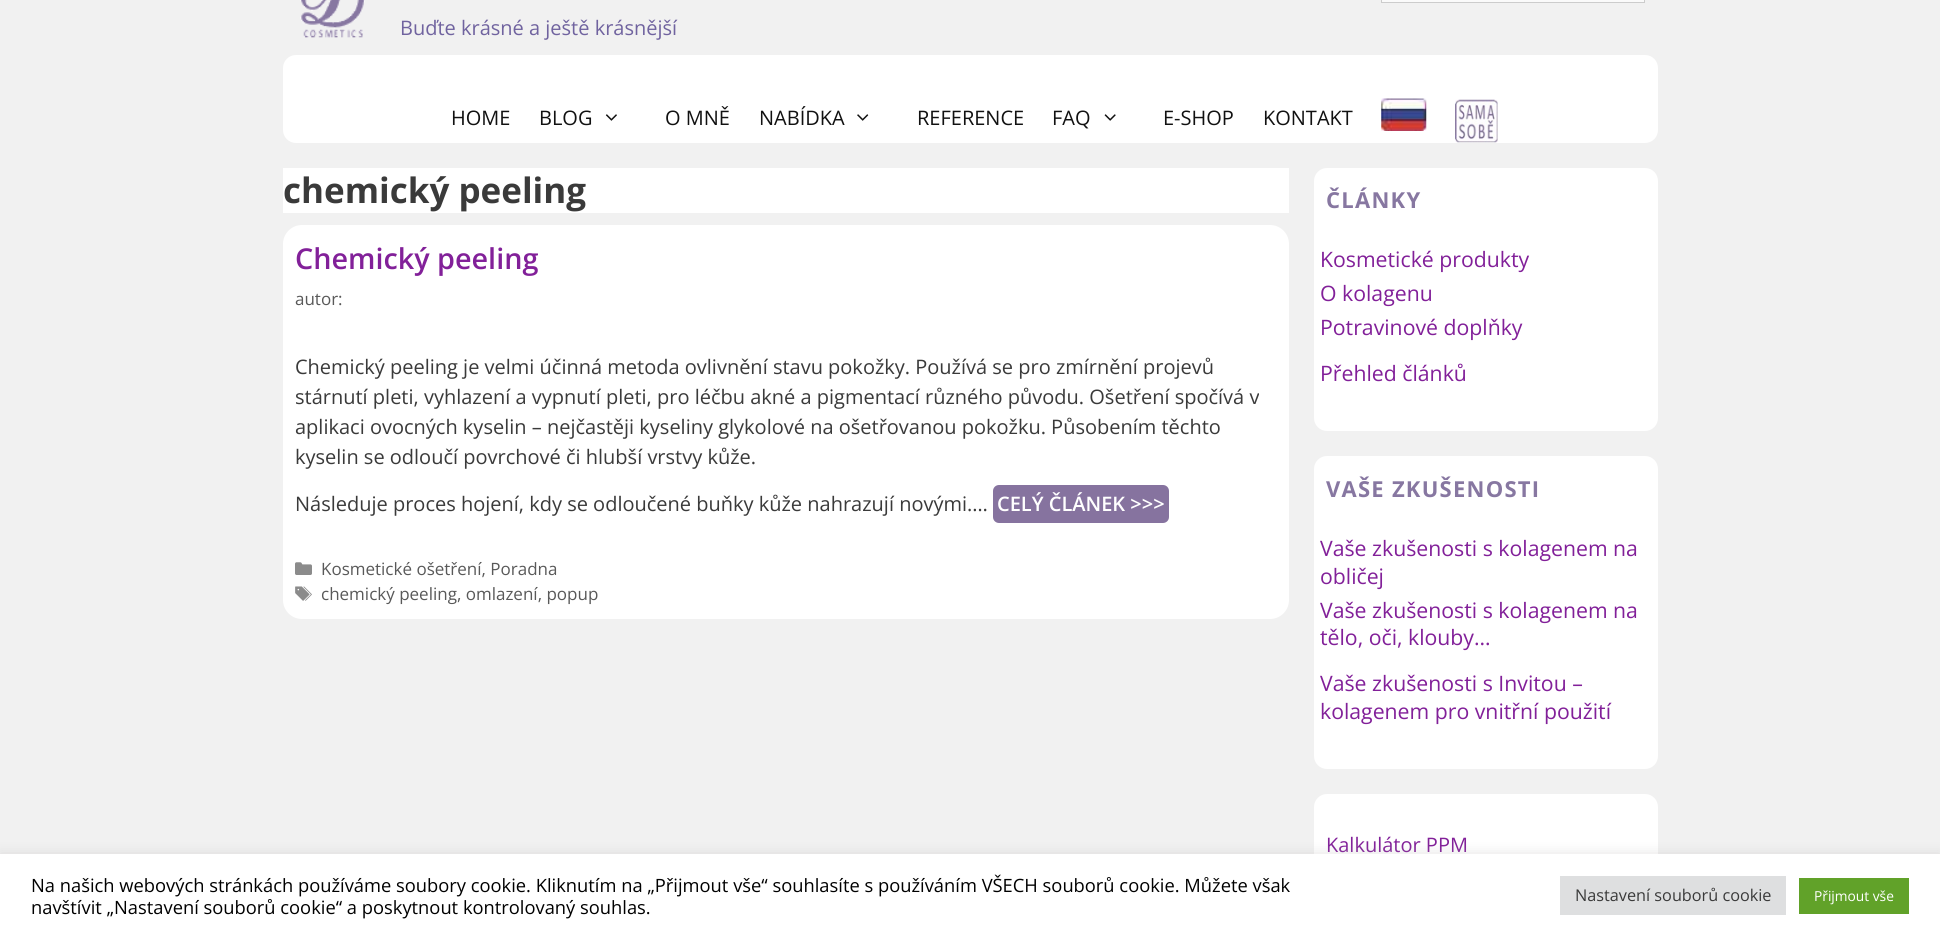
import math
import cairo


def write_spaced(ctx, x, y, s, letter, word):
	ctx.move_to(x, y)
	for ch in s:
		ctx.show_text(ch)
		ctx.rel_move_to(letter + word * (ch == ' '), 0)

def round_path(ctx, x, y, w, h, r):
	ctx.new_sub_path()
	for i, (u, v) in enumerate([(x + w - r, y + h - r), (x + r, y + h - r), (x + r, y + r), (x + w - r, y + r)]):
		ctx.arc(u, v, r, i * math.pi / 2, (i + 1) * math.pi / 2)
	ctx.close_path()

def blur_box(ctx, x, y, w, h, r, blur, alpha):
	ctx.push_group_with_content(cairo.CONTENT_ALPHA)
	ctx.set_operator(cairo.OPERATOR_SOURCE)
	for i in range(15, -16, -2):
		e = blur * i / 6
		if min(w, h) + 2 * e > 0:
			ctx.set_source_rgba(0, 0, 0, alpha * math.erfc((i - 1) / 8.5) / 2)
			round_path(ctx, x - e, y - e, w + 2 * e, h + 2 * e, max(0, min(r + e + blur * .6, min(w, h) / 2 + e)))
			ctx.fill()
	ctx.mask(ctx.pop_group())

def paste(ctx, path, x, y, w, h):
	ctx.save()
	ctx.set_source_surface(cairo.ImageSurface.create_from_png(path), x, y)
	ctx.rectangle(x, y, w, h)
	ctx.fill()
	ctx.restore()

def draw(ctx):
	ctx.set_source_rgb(0.945, 0.945, 0.945)
	ctx.paint()
	ctx.set_source_rgb(0.98, 0.98, 0.98)
	ctx.rectangle(1381.5, -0.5, 263, 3)
	ctx.fill_preserve()
	ctx.set_source_rgb(0.8, 0.8, 0.8)
	ctx.set_line_width(1)
	ctx.stroke()
	paste(ctx, 'media/1.png', 300, 0, 65, 38)
	ctx.select_font_face('Open Sans')
	ctx.set_font_size(20)
	ctx.set_source_rgb(0.439, 0.388, 0.624)
	ctx.move_to(400, 35)
	ctx.show_text('Buďte krásné a ještě krásnější')
	ctx.set_source_rgb(1, 1, 1)
	round_path(ctx, 283, 55, 1375, 88, 13)
	ctx.fill()
	ctx.set_source_rgb(0.067, 0.067, 0.067)
	ctx.move_to(451, 125)
	ctx.show_text('HOME')
	ctx.move_to(539, 125)
	ctx.show_text('BLOG')
	paste(ctx, 'media/2.png', 605, 114, 12, 7)
	ctx.move_to(665, 125)
	ctx.show_text('O MNĚ')
	ctx.move_to(759, 125)
	ctx.show_text('NABÍDKA')
	paste(ctx, 'media/3.png', 857, 114, 12, 7)
	ctx.move_to(917, 125)
	ctx.show_text('REFERENCE')
	ctx.move_to(1052, 125)
	ctx.show_text('FAQ')
	paste(ctx, 'media/4.png', 1104, 114, 12, 7)
	ctx.move_to(1163, 125)
	ctx.show_text('E-SHOP')
	ctx.move_to(1263, 125)
	ctx.show_text('KONTAKT')
	paste(ctx, 'media/5.png', 1381, 98, 46, 33)
	paste(ctx, 'media/6.png', 1455, 99, 43, 44)
	ctx.set_source_rgb(1, 1, 1)
	ctx.rectangle(283, 168, 1006, 45)
	ctx.fill()
	ctx.select_font_face('Open Sans', cairo.FONT_SLANT_NORMAL, cairo.FONT_WEIGHT_BOLD)
	ctx.set_font_size(35)
	ctx.set_source_rgb(0.227, 0.227, 0.227)
	ctx.move_to(283, 203)
	ctx.show_text('chemický peeling')
	ctx.set_source_rgb(1, 1, 1)
	round_path(ctx, 283, 225, 1006, 394, 19)
	ctx.fill()
	ctx.select_font_face('Open Sans SemiBold')
	ctx.set_font_size(28.75)
	ctx.set_source_rgb(0.51, 0.125, 0.6)
	ctx.move_to(295, 269)
	ctx.show_text('Chemický peeling')
	ctx.select_font_face('Open Sans')
	ctx.set_font_size(17)
	ctx.set_source_rgb(0.349, 0.349, 0.349)
	ctx.move_to(295, 305)
	ctx.show_text('autor:')
	ctx.set_font_size(20)
	ctx.set_source_rgb(0.227, 0.227, 0.227)
	for x, y, s in [
		(295, 374, 'Chemický peeling je velmi účinná metoda ovlivnění stavu pokožky. Používá se pro zmírnění projevů'),
		(295, 404, 'stárnutí pleti, vyhlazení a vypnutí pleti, pro léčbu akné a pigmentací různého původu. Ošetření spočívá v'),
		(295, 434, 'aplikaci ovocných kyselin – nejčastěji kyseliny glykolové na ošetřovanou pokožku. Působením těchto'),
		(295, 464, 'kyselin se odloučí povrchové či hlubší vrstvy kůže.'),
		(295, 511, 'Následuje proces hojení, kdy se odloučené buňky kůže nahrazují novými.…'),
	]:
		ctx.move_to(x, y)
		ctx.show_text(s)
	ctx.set_source_rgb(0.525, 0.451, 0.624)
	round_path(ctx, 993, 485, 176, 38, 6)
	ctx.fill()
	ctx.select_font_face('Open Sans SemiBold')
	ctx.set_source_rgb(1, 1, 1)
	ctx.move_to(997, 511)
	ctx.show_text('CELÝ ČLÁNEK >>>')
	paste(ctx, 'media/7.png', 295, 562, 17, 13)
	ctx.select_font_face('Open Sans')
	ctx.set_font_size(17)
	ctx.set_source_rgb(0.349, 0.349, 0.349)
	ctx.move_to(321, 575)
	ctx.show_text('Kosmetické ošetření, Poradna')
	paste(ctx, 'media/8.png', 295, 586, 17, 15)
	ctx.move_to(321, 600)
	ctx.show_text('chemický peeling, omlazení, popup')
	ctx.set_source_rgb(1, 1, 1)
	round_path(ctx, 1314, 168, 344, 263, 13)
	ctx.fill()
	ctx.select_font_face('Open Sans', cairo.FONT_SLANT_NORMAL, cairo.FONT_WEIGHT_BOLD)
	ctx.set_font_size(22)
	ctx.set_source_rgb(0.529, 0.467, 0.631)
	write_spaced(ctx, 1326, 208, 'ČLÁNKY', 1.25, 0)
	ctx.select_font_face('Open Sans')
	ctx.set_font_size(21.25)
	ctx.set_source_rgb(0.51, 0.125, 0.6)
	for x, y, s in [
		(1320, 267, 'Kosmetické produkty'),
		(1320, 301, 'O kolagenu'),
		(1320, 335, 'Potravinové doplňky'),
		(1320, 381, 'Přehled článků'),
	]:
		ctx.move_to(x, y)
		ctx.show_text(s)
	ctx.set_source_rgb(1, 1, 1)
	round_path(ctx, 1314, 456, 344, 313, 13)
	ctx.fill()
	ctx.select_font_face('Open Sans', cairo.FONT_SLANT_NORMAL, cairo.FONT_WEIGHT_BOLD)
	ctx.set_font_size(22)
	ctx.set_source_rgb(0.529, 0.467, 0.631)
	write_spaced(ctx, 1326, 497, 'VAŠE ZKUŠENOSTI', 1.25, 0)
	ctx.select_font_face('Open Sans')
	ctx.set_font_size(21.25)
	ctx.set_source_rgb(0.51, 0.125, 0.6)
	for x, y, s in [
		(1320, 556, 'Vaše zkušenosti s kolagenem na'),
		(1320, 584, 'obličej'),
		(1320, 618, 'Vaše zkušenosti s kolagenem na'),
		(1320, 645, 'tělo, oči, klouby…'),
		(1320, 691, 'Vaše zkušenosti s Invitou –'),
		(1320, 719, 'kolagenem pro vnitřní použití'),
	]:
		ctx.move_to(x, y)
		ctx.show_text(s)
	ctx.set_source_rgb(1, 1, 1)
	round_path(ctx, 1314, 794, 344, 95, 13)
	ctx.fill()
	ctx.set_font_size(20)
	ctx.set_source_rgb(0.51, 0.125, 0.6)
	ctx.move_to(1326, 852)
	ctx.show_text('Kalkulátor PPM')
	ctx.set_source_rgb(0.675, 0.671, 0.671)
	blur_box(ctx, 0, 853, 1940, 83, 0, 6, 0.3)
	ctx.set_source_rgb(1, 1, 1)
	ctx.rectangle(0, 854, 1940, 83)
	ctx.fill()
	ctx.set_font_size(18.33)
	ctx.set_source_rgb(0, 0, 0)
	ctx.move_to(31, 892)
	ctx.show_text('Na našich webových stránkách používáme soubory cookie. Kliknutím na „Přijmout vše“ souhlasíte s používáním VŠECH souborů cookie. Můžete však')
	ctx.move_to(31, 914)
	ctx.show_text('navštívit „Nastavení souborů cookie“ a poskytnout kontrolovaný souhlas.')
	ctx.set_source_rgb(0.871, 0.875, 0.878)
	ctx.rectangle(1560, 876, 226, 39)
	ctx.fill()
	ctx.set_font_size(16.25)
	ctx.set_source_rgb(0.227, 0.227, 0.227)
	ctx.move_to(1575, 901)
	ctx.show_text('Nastavení souborů cookie')
	ctx.set_source_rgb(0.38, 0.635, 0.161)
	ctx.rectangle(1799, 878, 110, 36)
	ctx.fill()
	ctx.set_font_size(13.75)
	ctx.set_source_rgb(1, 1, 1)
	ctx.move_to(1814, 901)
	ctx.show_text('Přijmout vše')


surface = cairo.ImageSurface(cairo.FORMAT_RGB24, 1940, 937)
ctx = cairo.Context(surface)
options = cairo.FontOptions()
options.set_hint_metrics(cairo.HINT_METRICS_OFF)
options.set_hint_style(cairo.HINT_STYLE_NONE)
ctx.set_font_options(options)
ctx.set_miter_limit(4)
draw(ctx)
surface.write_to_png('image.png')
